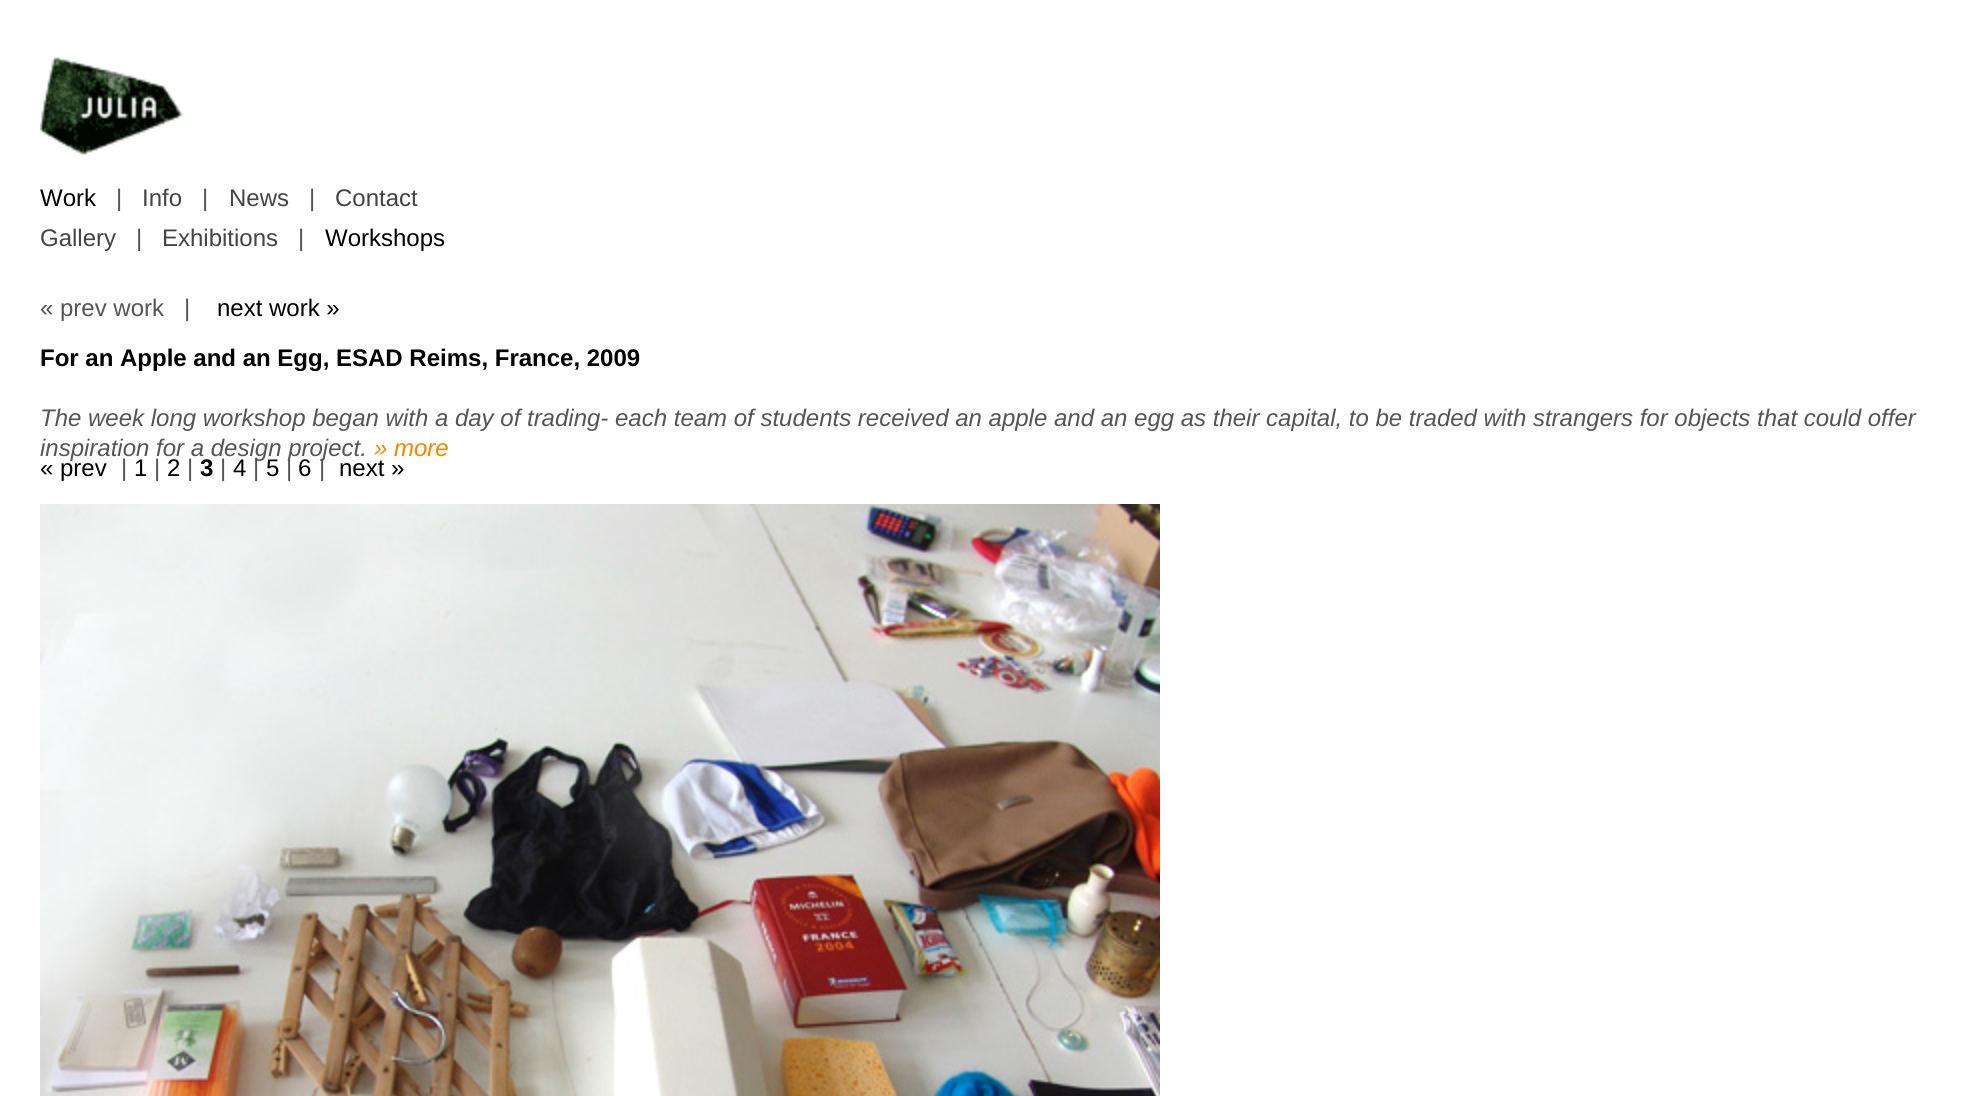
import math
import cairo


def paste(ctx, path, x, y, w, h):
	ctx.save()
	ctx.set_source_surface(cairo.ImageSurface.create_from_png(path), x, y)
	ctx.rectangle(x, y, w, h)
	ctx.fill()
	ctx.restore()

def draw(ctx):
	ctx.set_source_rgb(1, 1, 1)
	ctx.paint()
	paste(ctx, 'media/1.png', 40, 57, 143, 98)
	ctx.select_font_face('Liberation Sans')
	ctx.set_font_size(24)
	ctx.set_source_rgb(0, 0, 0)
	ctx.move_to(40, 206)
	ctx.show_text('Work')
	ctx.set_source_rgb(0.333, 0.333, 0.333)
	ctx.move_to(116, 206)
	ctx.show_text('|')
	ctx.set_source_rgb(0.267, 0.267, 0.267)
	ctx.move_to(142, 206)
	ctx.show_text('Info')
	ctx.set_source_rgb(0.333, 0.333, 0.333)
	ctx.move_to(202, 206)
	ctx.show_text('|')
	ctx.set_source_rgb(0.267, 0.267, 0.267)
	ctx.move_to(229, 206)
	ctx.show_text('News')
	ctx.set_source_rgb(0.333, 0.333, 0.333)
	ctx.move_to(309, 206)
	ctx.show_text('|')
	ctx.set_source_rgb(0.267, 0.267, 0.267)
	ctx.move_to(335, 206)
	ctx.show_text('Contact')
	ctx.move_to(40, 246)
	ctx.show_text('Gallery')
	ctx.set_source_rgb(0.333, 0.333, 0.333)
	ctx.move_to(136, 246)
	ctx.show_text('|')
	ctx.set_source_rgb(0.267, 0.267, 0.267)
	ctx.move_to(162, 246)
	ctx.show_text('Exhibitions')
	ctx.set_source_rgb(0.333, 0.333, 0.333)
	ctx.move_to(298, 246)
	ctx.show_text('|')
	ctx.set_source_rgb(0, 0, 0)
	ctx.move_to(325, 246)
	ctx.show_text('Workshops')
	ctx.set_source_rgb(0.333, 0.333, 0.333)
	ctx.move_to(40, 316)
	ctx.show_text('« prev work')
	ctx.move_to(184, 316)
	ctx.show_text('|')
	ctx.set_source_rgb(0, 0, 0)
	ctx.move_to(217, 316)
	ctx.show_text('next work »')
	ctx.select_font_face('Liberation Sans', cairo.FONT_SLANT_NORMAL, cairo.FONT_WEIGHT_BOLD)
	ctx.move_to(40, 366)
	ctx.show_text('For an Apple and an Egg, ESAD Reims, France, 2009')
	ctx.select_font_face('Liberation Sans', cairo.FONT_SLANT_ITALIC)
	ctx.set_source_rgb(0.333, 0.333, 0.333)
	ctx.move_to(40, 426)
	ctx.show_text('The week long workshop began with a day of trading- each team of students received an apple and an egg as their capital, to be traded with strangers for objects that could offer')
	ctx.move_to(40, 456)
	ctx.show_text('inspiration for a design project.')
	ctx.set_source_rgb(0.933, 0.533, 0)
	ctx.move_to(374, 456)
	ctx.show_text('» more')
	ctx.select_font_face('Liberation Sans')
	ctx.set_source_rgb(0, 0, 0)
	ctx.move_to(40, 476)
	ctx.show_text('« prev')
	ctx.set_source_rgb(0.333, 0.333, 0.333)
	ctx.move_to(121, 476)
	ctx.show_text('|')
	ctx.set_source_rgb(0, 0, 0)
	ctx.move_to(134, 476)
	ctx.show_text('1')
	ctx.set_source_rgb(0.333, 0.333, 0.333)
	ctx.move_to(154, 476)
	ctx.show_text('|')
	ctx.set_source_rgb(0, 0, 0)
	ctx.move_to(167, 476)
	ctx.show_text('2')
	ctx.set_source_rgb(0.333, 0.333, 0.333)
	ctx.move_to(187, 476)
	ctx.show_text('|')
	ctx.select_font_face('Liberation Sans', cairo.FONT_SLANT_NORMAL, cairo.FONT_WEIGHT_BOLD)
	ctx.set_source_rgb(0, 0, 0)
	ctx.move_to(200, 476)
	ctx.show_text('3')
	ctx.select_font_face('Liberation Sans')
	ctx.set_source_rgb(0.333, 0.333, 0.333)
	ctx.move_to(220, 476)
	ctx.show_text('|')
	ctx.set_source_rgb(0, 0, 0)
	ctx.move_to(233, 476)
	ctx.show_text('4')
	ctx.set_source_rgb(0.333, 0.333, 0.333)
	ctx.move_to(253, 476)
	ctx.show_text('|')
	ctx.set_source_rgb(0, 0, 0)
	ctx.move_to(266, 476)
	ctx.show_text('5')
	ctx.set_source_rgb(0.333, 0.333, 0.333)
	ctx.move_to(286, 476)
	ctx.show_text('|')
	ctx.set_source_rgb(0, 0, 0)
	ctx.move_to(298, 476)
	ctx.show_text('6')
	ctx.set_source_rgb(0.333, 0.333, 0.333)
	ctx.move_to(319, 476)
	ctx.show_text('|')
	ctx.set_source_rgb(0, 0, 0)
	ctx.move_to(339, 476)
	ctx.show_text('next »')
	paste(ctx, 'media/2.png', 40, 504, 1120, 592)


surface = cairo.ImageSurface(cairo.FORMAT_RGB24, 1982, 1096)
ctx = cairo.Context(surface)
options = cairo.FontOptions()
options.set_hint_metrics(cairo.HINT_METRICS_OFF)
options.set_hint_style(cairo.HINT_STYLE_NONE)
ctx.set_font_options(options)
ctx.set_miter_limit(4)
draw(ctx)
surface.write_to_png('image.png')
